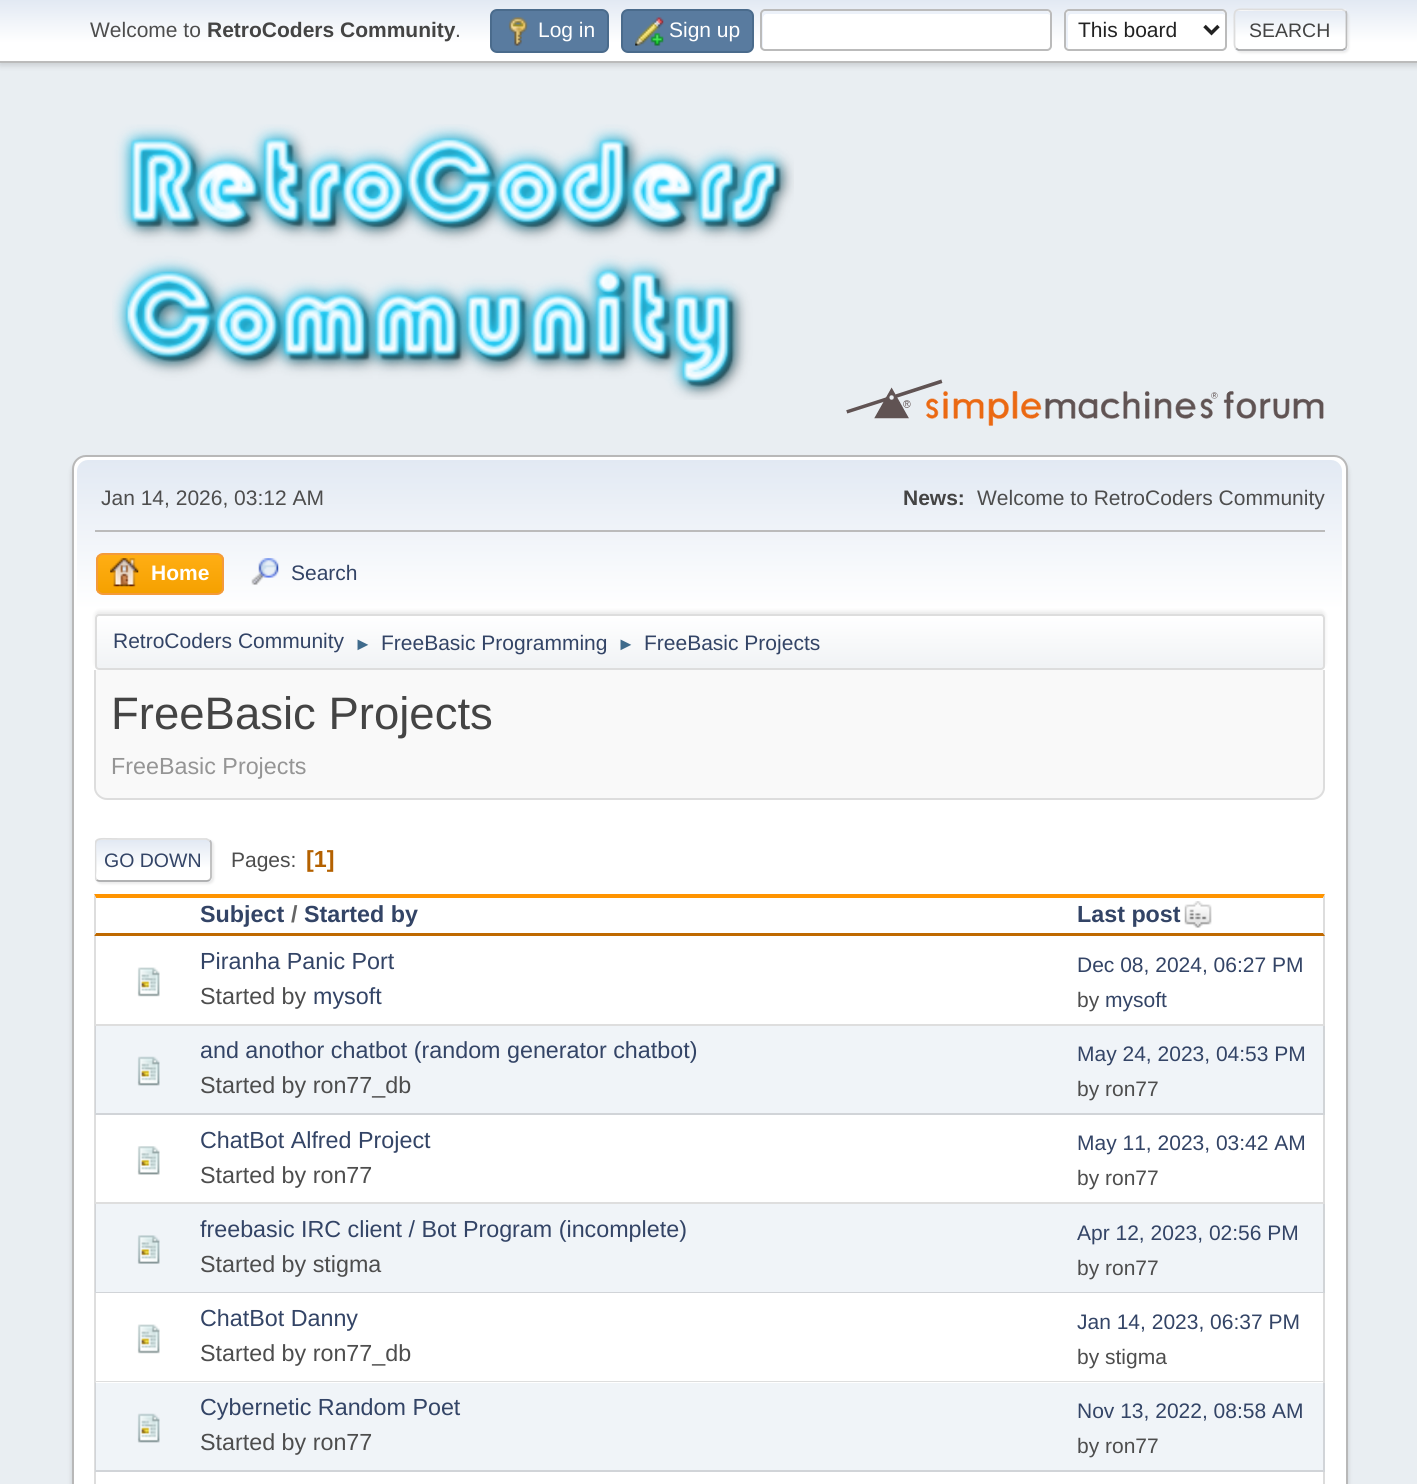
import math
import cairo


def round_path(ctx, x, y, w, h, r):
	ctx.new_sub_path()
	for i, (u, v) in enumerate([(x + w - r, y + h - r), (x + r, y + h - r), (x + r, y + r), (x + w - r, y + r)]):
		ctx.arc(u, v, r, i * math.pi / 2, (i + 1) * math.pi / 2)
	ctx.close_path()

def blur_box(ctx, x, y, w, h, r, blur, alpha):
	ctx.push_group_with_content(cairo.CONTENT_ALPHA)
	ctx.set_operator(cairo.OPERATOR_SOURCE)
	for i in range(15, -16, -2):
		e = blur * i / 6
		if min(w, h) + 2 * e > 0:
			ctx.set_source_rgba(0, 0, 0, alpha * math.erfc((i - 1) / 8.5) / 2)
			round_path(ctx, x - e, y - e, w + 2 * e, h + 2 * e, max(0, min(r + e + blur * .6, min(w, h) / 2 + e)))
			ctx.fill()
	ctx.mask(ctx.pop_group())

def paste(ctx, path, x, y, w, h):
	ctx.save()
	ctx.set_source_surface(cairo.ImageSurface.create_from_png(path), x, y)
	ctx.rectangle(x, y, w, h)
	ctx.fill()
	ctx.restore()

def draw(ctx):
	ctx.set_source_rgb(0.914, 0.933, 0.949)
	ctx.paint()
	ctx.set_source_rgb(0, 0, 0)
	blur_box(ctx, 0, 2, 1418, 63, 0, 3.5, 0.16)
	gradient = cairo.LinearGradient(709, 0, 709, 61)
	gradient.add_color_stop_rgba(0, 0.886, 0.914, 0.953, 1)
	gradient.add_color_stop_rgba(0.7, 1, 1, 1, 1)
	ctx.set_source(gradient)
	ctx.rectangle(0, 0, 1417, 61)
	ctx.fill()
	ctx.set_source_rgb(0.733, 0.733, 0.733)
	ctx.rectangle(0, 61, 1417, 2)
	ctx.fill()
	ctx.select_font_face('Liberation Sans')
	ctx.set_font_size(21)
	ctx.set_source_rgb(0.302, 0.302, 0.302)
	ctx.move_to(90, 37)
	ctx.show_text('Welcome to')
	ctx.select_font_face('Liberation Sans', cairo.FONT_SLANT_NORMAL, cairo.FONT_WEIGHT_BOLD)
	ctx.set_source_rgb(0.267, 0.267, 0.267)
	ctx.move_to(207, 37)
	ctx.show_text('RetroCoders Community')
	ctx.select_font_face('Liberation Sans')
	ctx.set_source_rgb(0.302, 0.302, 0.302)
	ctx.move_to(455, 37)
	ctx.show_text('.')
	ctx.set_source_rgb(0.349, 0.482, 0.624)
	round_path(ctx, 491, 10, 117, 42, 6)
	ctx.fill_preserve()
	ctx.set_source_rgb(0.29, 0.42, 0.549)
	ctx.stroke()
	paste(ctx, 'media/1.png', 508, 17, 20, 29)
	ctx.set_source_rgb(1, 1, 1)
	ctx.move_to(538, 37)
	ctx.show_text('Log in')
	ctx.set_source_rgb(0.349, 0.482, 0.624)
	round_path(ctx, 622, 10, 131, 42, 6)
	ctx.fill_preserve()
	ctx.set_source_rgb(0.29, 0.42, 0.549)
	ctx.stroke()
	paste(ctx, 'media/2.png', 635, 17, 29, 29)
	ctx.set_source_rgb(1, 1, 1)
	ctx.move_to(669, 37)
	ctx.show_text('Sign up')
	round_path(ctx, 760, 9, 292, 42, 5)
	ctx.fill()
	ctx.set_source_rgb(0.925, 0.945, 0.973)
	ctx.new_path()
	ctx.move_to(766, 14)
	ctx.line_to(1048, 14)
	ctx.line_to(1050, 15)
	ctx.curve_to(1050, 13, 1048, 11, 1046, 11)
	ctx.line_to(765, 11)
	ctx.curve_to(763, 11, 761, 13, 761, 15)
	ctx.line_to(761, 45)
	ctx.curve_to(761, 46, 762, 48, 763, 48)
	ctx.line_to(763, 18)
	ctx.curve_to(763, 16, 765, 14, 766, 14)
	ctx.close_path()
	ctx.fill()
	round_path(ctx, 761, 10, 290, 40, 4)
	ctx.set_source_rgb(0.733, 0.733, 0.733)
	ctx.stroke()
	ctx.set_source_rgb(1, 1, 1)
	round_path(ctx, 1064, 9, 163, 42, 5)
	ctx.fill()
	ctx.set_source_rgb(0.925, 0.945, 0.973)
	ctx.new_path()
	ctx.move_to(1071, 14)
	ctx.line_to(1223, 14)
	ctx.line_to(1225, 15)
	ctx.curve_to(1225, 13, 1223, 11, 1221, 11)
	ctx.line_to(1070, 11)
	ctx.curve_to(1068, 11, 1066, 13, 1066, 15)
	ctx.line_to(1066, 45)
	ctx.curve_to(1066, 46, 1067, 48, 1068, 48)
	ctx.line_to(1068, 18)
	ctx.curve_to(1068, 16, 1069, 14, 1071, 14)
	ctx.close_path()
	ctx.fill()
	round_path(ctx, 1065, 10, 161, 40, 4)
	ctx.set_source_rgb(0.733, 0.733, 0.733)
	ctx.stroke()
	ctx.new_path()
	ctx.move_to(1204.5, 26)
	ctx.line_to(1211.5, 33)
	ctx.line_to(1218.5, 26)
	ctx.set_source_rgb(0.133, 0.133, 0.133)
	ctx.set_line_width(3.5)
	ctx.stroke()
	ctx.move_to(1078, 37)
	ctx.show_text('This board')
	ctx.set_source_rgb(0.867, 0.867, 0.867)
	blur_box(ctx, 1236, 11, 113, 42, 5, 1, 0.57)
	ctx.save()
	round_path(ctx, 1234, 9, 114, 42, 5)
	ctx.clip()
	gradient = cairo.LinearGradient(1291, -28, 1291, 11)
	gradient.add_color_stop_rgba(0, 0.886, 0.914, 0.953, 1)
	gradient.add_color_stop_rgba(0.7, 1, 1, 1, 1)
	ctx.set_source(gradient)
	ctx.rectangle(1234, 9, 114, 2)
	ctx.fill()
	gradient = cairo.LinearGradient(1291, 10, 1291, 49)
	gradient.add_color_stop_rgba(0, 0.886, 0.914, 0.953, 1)
	gradient.add_color_stop_rgba(0.7, 1, 1, 1, 1)
	ctx.set_source(gradient)
	ctx.rectangle(1234, 11, 114, 38)
	ctx.fill()
	gradient = cairo.LinearGradient(1291, 49, 1291, 88)
	gradient.add_color_stop_rgba(0, 0.886, 0.914, 0.953, 1)
	gradient.add_color_stop_rgba(0.7, 1, 1, 1, 1)
	ctx.set_source(gradient)
	ctx.rectangle(1234, 49, 114, 2)
	ctx.fill()
	ctx.restore()
	ctx.new_path()
	ctx.move_to(1345.5, 11)
	ctx.curve_to(1346, 11.5, 1346.5, 13, 1346.5, 14)
	ctx.line_to(1346.5, 45.5)
	ctx.curve_to(1346.5, 46.5, 1346, 48, 1345.5, 48.5)
	ctx.set_source_rgb(0.733, 0.733, 0.733)
	ctx.set_line_width(1.8)
	ctx.stroke()
	ctx.new_path()
	ctx.move_to(1345.5, 48.5)
	ctx.line_to(1342.5, 50)
	ctx.line_to(1238.5, 50)
	ctx.line_to(1236, 48.5)
	ctx.set_source_rgb(0.667, 0.667, 0.667)
	ctx.stroke()
	ctx.new_path()
	ctx.move_to(1236, 48.5)
	ctx.curve_to(1234, 46.5, 1234.5, 42.5, 1234.5, 40)
	ctx.line_to(1234.5, 30)
	ctx.curve_to(1234.5, 6, 1231, 9.5, 1256, 9.5)
	ctx.line_to(1342, 9.5)
	ctx.line_to(1345.5, 11)
	ctx.set_source_rgb(0.867, 0.867, 0.867)
	ctx.stroke()
	ctx.set_font_size(19.5)
	ctx.set_source_rgb(0.267, 0.267, 0.267)
	ctx.move_to(1249, 37)
	ctx.show_text('SEARCH')
	paste(ctx, 'media/3.png', 112, 124, 682, 276)
	paste(ctx, 'media/4.png', 846, 379, 478, 47)
	ctx.set_source_rgb(0, 0, 0)
	blur_box(ctx, 72, 459, 1276, 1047, 14, 2.5, 0.14)
	ctx.set_source_rgb(1, 1, 1)
	round_path(ctx, 73, 456, 1274, 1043, 13)
	ctx.fill_preserve()
	ctx.set_source_rgb(0.722, 0.722, 0.722)
	ctx.set_line_width(2)
	ctx.stroke()
	gradient = cairo.LinearGradient(710, 460, 710, 674)
	gradient.add_color_stop_rgba(0, 0.886, 0.914, 0.953, 1)
	gradient.add_color_stop_rgba(0.7, 1, 1, 1, 1)
	ctx.set_source(gradient)
	ctx.new_path()
	ctx.move_to(88, 460)
	ctx.line_to(1331, 460)
	ctx.curve_to(1337, 460, 1342, 465, 1342, 471)
	ctx.line_to(1342, 674)
	ctx.line_to(77, 674)
	ctx.line_to(77, 471)
	ctx.curve_to(77, 465, 82, 460, 88, 460)
	ctx.close_path()
	ctx.fill()
	ctx.set_source_rgb(0.733, 0.733, 0.733)
	ctx.rectangle(95, 530, 1230, 2)
	ctx.fill()
	ctx.set_font_size(21)
	ctx.set_source_rgb(0.302, 0.302, 0.302)
	ctx.move_to(101, 505)
	ctx.show_text('Jan 14, 2026, 03:12 AM')
	ctx.select_font_face('Liberation Sans', cairo.FONT_SLANT_NORMAL, cairo.FONT_WEIGHT_BOLD)
	ctx.set_source_rgb(0.267, 0.267, 0.267)
	ctx.move_to(903, 505)
	ctx.show_text('News:')
	ctx.select_font_face('Liberation Sans')
	ctx.set_source_rgb(0.302, 0.302, 0.302)
	ctx.move_to(977, 505)
	ctx.show_text('Welcome to RetroCoders Community')
	ctx.save()
	round_path(ctx, 96, 553, 128, 42, 7)
	ctx.clip()
	gradient = cairo.LinearGradient(160, 555, 160, 593)
	gradient.add_color_stop_rgba(0, 1, 0.682, 0.078, 1)
	gradient.add_color_stop_rgba(1, 0.961, 0.631, 0, 1)
	ctx.set_source(gradient)
	ctx.rectangle(96, 555, 128, 38)
	ctx.fill()
	ctx.restore()
	round_path(ctx, 97, 554, 126, 40, 6)
	ctx.set_source_rgb(0.957, 0.604, 0.227)
	ctx.stroke()
	paste(ctx, 'media/5.png', 110, 558, 29, 29)
	ctx.select_font_face('Liberation Sans', cairo.FONT_SLANT_NORMAL, cairo.FONT_WEIGHT_BOLD)
	ctx.set_source_rgb(1, 1, 1)
	ctx.move_to(151, 580)
	ctx.show_text('Home')
	paste(ctx, 'media/6.png', 251, 558, 28, 27)
	ctx.select_font_face('Liberation Sans')
	ctx.set_source_rgb(0.2, 0.267, 0.4)
	ctx.move_to(291, 580)
	ctx.show_text('Search')
	ctx.set_source_rgb(0, 0, 0)
	blur_box(ctx, 95, 611, 1230, 56, 4, 2, 0.08)
	ctx.save()
	round_path(ctx, 95, 614, 1230, 56, 4)
	ctx.clip()
	gradient = cairo.LinearGradient(710, 616, 710, 669)
	gradient.add_color_stop_rgba(0, 1, 1, 1, 1)
	gradient.add_color_stop_rgba(0.95, 0.945, 0.953, 0.961, 1)
	ctx.set_source(gradient)
	ctx.rectangle(95, 616, 1230, 53)
	ctx.fill()
	ctx.restore()
	round_path(ctx, 96, 615, 1228, 54, 3)
	ctx.set_source_rgb(0.867, 0.867, 0.867)
	ctx.stroke()
	ctx.set_source_rgb(0.2, 0.267, 0.4)
	ctx.move_to(113, 648)
	ctx.show_text('RetroCoders Community')
	ctx.set_font_size(18)
	ctx.set_source_rgb(0.247, 0.42, 0.549)
	ctx.move_to(354, 650)
	ctx.show_text('►')
	ctx.set_font_size(21)
	ctx.set_source_rgb(0.2, 0.267, 0.4)
	ctx.move_to(381, 650)
	ctx.show_text('FreeBasic Programming')
	ctx.set_font_size(18)
	ctx.set_source_rgb(0.247, 0.42, 0.549)
	ctx.move_to(617, 650)
	ctx.show_text('►')
	ctx.set_font_size(21)
	ctx.set_source_rgb(0.2, 0.267, 0.4)
	ctx.move_to(644, 650)
	ctx.show_text('FreeBasic Projects')
	ctx.set_source_rgb(0.973, 0.973, 0.973)
	ctx.new_path()
	ctx.move_to(95, 670)
	ctx.line_to(1325, 670)
	ctx.line_to(1325, 788)
	ctx.curve_to(1325, 794.5, 1319.5, 800, 1313, 800)
	ctx.line_to(107, 800)
	ctx.curve_to(100.5, 800, 95, 794.5, 95, 788)
	ctx.close_path()
	ctx.fill()
	ctx.set_source_rgb(0.867, 0.867, 0.867)
	ctx.set_fill_rule(cairo.FILL_RULE_EVEN_ODD)
	ctx.new_path()
	ctx.move_to(94, 670)
	ctx.line_to(1325, 670)
	ctx.line_to(1325, 788)
	ctx.curve_to(1325, 794, 1319, 800, 1312, 800)
	ctx.line_to(107, 800)
	ctx.curve_to(100, 800, 94, 794, 94, 788)
	ctx.close_path()
	ctx.move_to(96, 670)
	ctx.line_to(1323, 670)
	ctx.line_to(1323, 788)
	ctx.curve_to(1323, 793, 1318, 798, 1312, 798)
	ctx.line_to(107, 798)
	ctx.curve_to(101, 798, 96, 793, 96, 788)
	ctx.close_path()
	ctx.fill()
	ctx.set_font_size(45.5)
	ctx.set_source_rgb(0.267, 0.267, 0.267)
	ctx.move_to(111, 729)
	ctx.show_text('FreeBasic Projects')
	ctx.set_font_size(23.3)
	ctx.set_source_rgb(0.584, 0.584, 0.584)
	ctx.move_to(111, 774)
	ctx.show_text('FreeBasic Projects')
	ctx.set_source_rgb(0.867, 0.867, 0.867)
	blur_box(ctx, 96, 840, 118, 44, 5, 1, 0.57)
	ctx.set_source_rgb(1, 1, 1)
	round_path(ctx, 95, 838, 117, 44, 5)
	ctx.fill()
	ctx.save()
	ctx.set_fill_rule(cairo.FILL_RULE_WINDING)
	round_path(ctx, 95, 838, 117, 44, 5)
	ctx.clip()
	gradient = cairo.LinearGradient(153, 840, 153, 880)
	gradient.add_color_stop_rgba(0, 0.886, 0.914, 0.953, 1)
	gradient.add_color_stop_rgba(0.7, 1, 1, 1, 1)
	ctx.set_source(gradient)
	ctx.rectangle(95, 840, 117, 40)
	ctx.fill()
	gradient = cairo.LinearGradient(153, 880, 153, 921)
	gradient.add_color_stop_rgba(0, 0.886, 0.914, 0.953, 1)
	gradient.add_color_stop_rgba(0.7, 1, 1, 1, 1)
	ctx.set_source(gradient)
	ctx.rectangle(95, 880, 117, 2)
	ctx.fill()
	ctx.restore()
	ctx.new_path()
	ctx.move_to(209.5, 840.5)
	ctx.curve_to(210.5, 841, 211, 842.5, 211, 843.5)
	ctx.line_to(211, 877)
	ctx.curve_to(211, 878, 210.5, 879, 209.5, 880)
	ctx.set_source_rgb(0.733, 0.733, 0.733)
	ctx.set_line_width(1.8)
	ctx.stroke()
	ctx.new_path()
	ctx.move_to(209.5, 880)
	ctx.curve_to(209, 880.5, 207.5, 881, 206.5, 881)
	ctx.line_to(100, 881)
	ctx.curve_to(98.5, 881, 97.5, 880.5, 96.5, 880)
	ctx.set_source_rgb(0.667, 0.667, 0.667)
	ctx.stroke()
	ctx.save()
	ctx.set_fill_rule(cairo.FILL_RULE_WINDING)
	ctx.rectangle(95, 826, 1230, 68)
	ctx.clip()
	ctx.new_path()
	ctx.move_to(96.5, 880)
	ctx.curve_to(94.5, 877.5, 95.5, 873.5, 95.5, 871)
	ctx.line_to(95.5, 860)
	ctx.curve_to(95.5, 835.5, 91.5, 839, 117.5, 839)
	ctx.line_to(206.5, 839)
	ctx.line_to(209.5, 840.5)
	ctx.set_source_rgb(0.867, 0.867, 0.867)
	ctx.stroke()
	ctx.restore()
	ctx.set_font_size(19.5)
	ctx.set_source_rgb(0.2, 0.267, 0.4)
	ctx.move_to(104, 867)
	ctx.show_text('GO DOWN')
	ctx.set_font_size(21)
	ctx.set_source_rgb(0.302, 0.302, 0.302)
	ctx.move_to(231, 867)
	ctx.show_text('Pages:')
	ctx.select_font_face('Liberation Sans', cairo.FONT_SLANT_NORMAL, cairo.FONT_WEIGHT_BOLD)
	ctx.set_font_size(23.3)
	ctx.set_source_rgb(0.706, 0.38, 0)
	ctx.move_to(306, 867)
	ctx.show_text('[1]')
	ctx.set_source_rgb(1, 0.58, 0)
	ctx.set_fill_rule(cairo.FILL_RULE_WINDING)
	ctx.new_path()
	ctx.move_to(94, 894)
	ctx.line_to(1325, 894)
	ctx.line_to(1323, 898)
	ctx.line_to(96, 898)
	ctx.close_path()
	ctx.fill()
	ctx.set_source_rgb(0.867, 0.867, 0.867)
	ctx.new_path()
	ctx.move_to(1325, 894)
	ctx.line_to(1325, 936)
	ctx.line_to(1323, 933)
	ctx.line_to(1323, 898)
	ctx.close_path()
	ctx.fill()
	ctx.set_source_rgb(0.749, 0.412, 0)
	ctx.new_path()
	ctx.move_to(1325, 936)
	ctx.line_to(94, 936)
	ctx.line_to(96, 933)
	ctx.line_to(1323, 933)
	ctx.close_path()
	ctx.fill()
	ctx.set_source_rgb(0.867, 0.867, 0.867)
	ctx.new_path()
	ctx.move_to(94, 936)
	ctx.line_to(94, 894)
	ctx.line_to(96, 898)
	ctx.line_to(96, 933)
	ctx.close_path()
	ctx.fill()
	ctx.set_source_rgb(0.2, 0.267, 0.4)
	ctx.move_to(200, 922)
	ctx.show_text('Subject')
	ctx.set_source_rgb(0.4, 0.4, 0.4)
	ctx.move_to(291, 922)
	ctx.show_text('/')
	ctx.set_source_rgb(0.2, 0.267, 0.4)
	ctx.move_to(304, 922)
	ctx.show_text('Started by')
	ctx.move_to(1077, 922)
	ctx.show_text('Last post')
	paste(ctx, 'media/7.png', 1184, 901, 28, 27)
	ctx.set_source_rgb(0.863, 0.863, 0.863)
	ctx.new_path()
	ctx.move_to(1325, 936)
	ctx.line_to(1325, 1026)
	ctx.line_to(1323, 1024)
	ctx.line_to(1323, 936)
	ctx.close_path()
	ctx.fill()
	ctx.set_source_rgba(0, 0, 0, 0.13)
	ctx.new_path()
	ctx.move_to(1325, 1026)
	ctx.line_to(94, 1026)
	ctx.line_to(96, 1024)
	ctx.line_to(1323, 1024)
	ctx.close_path()
	ctx.fill()
	ctx.new_path()
	ctx.move_to(94, 1026)
	ctx.line_to(94, 936)
	ctx.line_to(96, 936)
	ctx.line_to(96, 1024)
	ctx.close_path()
	ctx.fill()
	paste(ctx, 'media/8.png', 137, 967, 23, 30)
	ctx.select_font_face('Liberation Sans')
	ctx.set_source_rgb(0.2, 0.267, 0.4)
	ctx.move_to(200, 969)
	ctx.show_text('Piranha Panic Port')
	ctx.set_source_rgb(0.302, 0.302, 0.302)
	ctx.move_to(200, 1004)
	ctx.show_text('Started by')
	ctx.set_source_rgb(0.2, 0.267, 0.4)
	ctx.move_to(313, 1004)
	ctx.show_text('mysoft')
	ctx.set_font_size(21)
	ctx.move_to(1077, 972)
	ctx.show_text('Dec 08, 2024, 06:27 PM')
	ctx.set_source_rgb(0.302, 0.302, 0.302)
	ctx.move_to(1077, 1007)
	ctx.show_text('by')
	ctx.set_source_rgb(0.2, 0.267, 0.4)
	ctx.move_to(1105, 1007)
	ctx.show_text('mysoft')
	ctx.set_source_rgb(0.941, 0.957, 0.969)
	ctx.rectangle(95, 1026, 1230, 89)
	ctx.fill()
	ctx.set_source_rgb(0.82, 0.831, 0.843)
	ctx.new_path()
	ctx.move_to(1325, 1026)
	ctx.line_to(1325, 1115)
	ctx.line_to(1323, 1113)
	ctx.line_to(1323, 1026)
	ctx.close_path()
	ctx.fill()
	ctx.set_source_rgba(0, 0, 0, 0.13)
	ctx.new_path()
	ctx.move_to(1325, 1115)
	ctx.line_to(94, 1115)
	ctx.line_to(96, 1113)
	ctx.line_to(1323, 1113)
	ctx.close_path()
	ctx.fill()
	ctx.new_path()
	ctx.move_to(94, 1115)
	ctx.line_to(94, 1026)
	ctx.line_to(96, 1026)
	ctx.line_to(96, 1113)
	ctx.close_path()
	ctx.fill()
	paste(ctx, 'media/9.png', 137, 1056, 23, 30)
	ctx.set_font_size(23.3)
	ctx.set_source_rgb(0.2, 0.267, 0.4)
	ctx.move_to(200, 1058)
	ctx.show_text('and anothor chatbot (random generator chatbot)')
	ctx.set_source_rgb(0.302, 0.302, 0.302)
	ctx.move_to(200, 1093)
	ctx.show_text('Started by ron77_db')
	ctx.set_font_size(21)
	ctx.set_source_rgb(0.2, 0.267, 0.4)
	ctx.move_to(1077, 1061)
	ctx.show_text('May 24, 2023, 04:53 PM')
	ctx.set_source_rgb(0.302, 0.302, 0.302)
	ctx.move_to(1077, 1096)
	ctx.show_text('by ron77')
	ctx.set_source_rgb(0.863, 0.863, 0.863)
	ctx.new_path()
	ctx.move_to(1325, 1115)
	ctx.line_to(1325, 1204)
	ctx.line_to(1323, 1202)
	ctx.line_to(1323, 1115)
	ctx.close_path()
	ctx.fill()
	ctx.set_source_rgba(0, 0, 0, 0.13)
	ctx.new_path()
	ctx.move_to(1325, 1204)
	ctx.line_to(94, 1204)
	ctx.line_to(96, 1202)
	ctx.line_to(1323, 1202)
	ctx.close_path()
	ctx.fill()
	ctx.new_path()
	ctx.move_to(94, 1204)
	ctx.line_to(94, 1115)
	ctx.line_to(96, 1115)
	ctx.line_to(96, 1202)
	ctx.close_path()
	ctx.fill()
	paste(ctx, 'media/10.png', 137, 1146, 23, 29)
	ctx.set_font_size(23.3)
	ctx.set_source_rgb(0.2, 0.267, 0.4)
	ctx.move_to(200, 1148)
	ctx.show_text('ChatBot Alfred Project')
	ctx.set_source_rgb(0.302, 0.302, 0.302)
	ctx.move_to(200, 1183)
	ctx.show_text('Started by ron77')
	ctx.set_font_size(21)
	ctx.set_source_rgb(0.2, 0.267, 0.4)
	ctx.move_to(1077, 1150)
	ctx.show_text('May 11, 2023, 03:42 AM')
	ctx.set_source_rgb(0.302, 0.302, 0.302)
	ctx.move_to(1077, 1185)
	ctx.show_text('by ron77')
	ctx.set_source_rgb(0.941, 0.957, 0.969)
	ctx.rectangle(95, 1204, 1230, 89)
	ctx.fill()
	ctx.set_source_rgb(0.82, 0.831, 0.843)
	ctx.new_path()
	ctx.move_to(1325, 1204)
	ctx.line_to(1325, 1293)
	ctx.line_to(1323, 1292)
	ctx.line_to(1323, 1204)
	ctx.close_path()
	ctx.fill()
	ctx.set_source_rgba(0, 0, 0, 0.13)
	ctx.new_path()
	ctx.move_to(1325, 1293)
	ctx.line_to(94, 1293)
	ctx.line_to(96, 1292)
	ctx.line_to(1323, 1292)
	ctx.close_path()
	ctx.fill()
	ctx.new_path()
	ctx.move_to(94, 1293)
	ctx.line_to(94, 1204)
	ctx.line_to(96, 1204)
	ctx.line_to(96, 1292)
	ctx.close_path()
	ctx.fill()
	paste(ctx, 'media/11.png', 137, 1235, 23, 29)
	ctx.set_font_size(23.3)
	ctx.set_source_rgb(0.2, 0.267, 0.4)
	ctx.move_to(200, 1237)
	ctx.show_text('freebasic IRC client / Bot Program (incomplete)')
	ctx.set_source_rgb(0.302, 0.302, 0.302)
	ctx.move_to(200, 1272)
	ctx.show_text('Started by stigma')
	ctx.set_font_size(21)
	ctx.set_source_rgb(0.2, 0.267, 0.4)
	ctx.move_to(1077, 1240)
	ctx.show_text('Apr 12, 2023, 02:56 PM')
	ctx.set_source_rgb(0.302, 0.302, 0.302)
	ctx.move_to(1077, 1275)
	ctx.show_text('by ron77')
	ctx.set_source_rgb(0.863, 0.863, 0.863)
	ctx.new_path()
	ctx.move_to(1325, 1293)
	ctx.line_to(1325, 1382)
	ctx.line_to(1323, 1381)
	ctx.line_to(1323, 1293)
	ctx.close_path()
	ctx.fill()
	ctx.set_source_rgba(0, 0, 0, 0.13)
	ctx.new_path()
	ctx.move_to(1325, 1382)
	ctx.line_to(94, 1382)
	ctx.line_to(96, 1381)
	ctx.line_to(1323, 1381)
	ctx.close_path()
	ctx.fill()
	ctx.new_path()
	ctx.move_to(94, 1382)
	ctx.line_to(94, 1293)
	ctx.line_to(96, 1293)
	ctx.line_to(96, 1381)
	ctx.close_path()
	ctx.fill()
	paste(ctx, 'media/8.png', 137, 1324, 23, 30)
	ctx.set_font_size(23.3)
	ctx.set_source_rgb(0.2, 0.267, 0.4)
	ctx.move_to(200, 1326)
	ctx.show_text('ChatBot Danny')
	ctx.set_source_rgb(0.302, 0.302, 0.302)
	ctx.move_to(200, 1361)
	ctx.show_text('Started by ron77_db')
	ctx.set_font_size(21)
	ctx.set_source_rgb(0.2, 0.267, 0.4)
	ctx.move_to(1077, 1329)
	ctx.show_text('Jan 14, 2023, 06:37 PM')
	ctx.set_source_rgb(0.302, 0.302, 0.302)
	ctx.move_to(1077, 1364)
	ctx.show_text('by stigma')
	ctx.set_source_rgb(0.941, 0.957, 0.969)
	ctx.rectangle(95, 1383, 1230, 89)
	ctx.fill()
	ctx.set_source_rgba(0, 0, 0, 0.13)
	ctx.new_path()
	ctx.move_to(1325, 1382)
	ctx.line_to(1325, 1472)
	ctx.line_to(1323, 1470)
	ctx.line_to(1323, 1382)
	ctx.close_path()
	ctx.fill()
	ctx.new_path()
	ctx.move_to(1325, 1472)
	ctx.line_to(94, 1472)
	ctx.line_to(96, 1470)
	ctx.line_to(1323, 1470)
	ctx.close_path()
	ctx.fill()
	ctx.new_path()
	ctx.move_to(94, 1472)
	ctx.line_to(94, 1382)
	ctx.line_to(96, 1382)
	ctx.line_to(96, 1470)
	ctx.close_path()
	ctx.fill()
	paste(ctx, 'media/9.png', 137, 1413, 23, 30)
	ctx.set_font_size(23.3)
	ctx.set_source_rgb(0.2, 0.267, 0.4)
	ctx.move_to(200, 1415)
	ctx.show_text('Cybernetic Random Poet')
	ctx.set_source_rgb(0.302, 0.302, 0.302)
	ctx.move_to(200, 1450)
	ctx.show_text('Started by ron77')
	ctx.set_font_size(21)
	ctx.set_source_rgb(0.2, 0.267, 0.4)
	ctx.move_to(1077, 1418)
	ctx.show_text('Nov 13, 2022, 08:58 AM')
	ctx.set_source_rgb(0.302, 0.302, 0.302)
	ctx.move_to(1077, 1453)
	ctx.show_text('by ron77')
	ctx.set_source_rgb(0.863, 0.863, 0.863)
	ctx.new_path()
	ctx.move_to(1325, 1472)
	ctx.line_to(1325, 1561)
	ctx.line_to(1323, 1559)
	ctx.line_to(1323, 1472)
	ctx.close_path()
	ctx.fill()
	ctx.set_source_rgb(0.867, 0.867, 0.867)
	ctx.new_path()
	ctx.move_to(94, 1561)
	ctx.line_to(94, 1472)
	ctx.line_to(96, 1472)
	ctx.line_to(96, 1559)
	ctx.close_path()
	ctx.fill()


surface = cairo.ImageSurface(cairo.FORMAT_RGB24, 1417, 1484)
ctx = cairo.Context(surface)
options = cairo.FontOptions()
options.set_hint_metrics(cairo.HINT_METRICS_OFF)
options.set_hint_style(cairo.HINT_STYLE_NONE)
ctx.set_font_options(options)
ctx.set_miter_limit(4)
draw(ctx)
surface.write_to_png('image.png')
